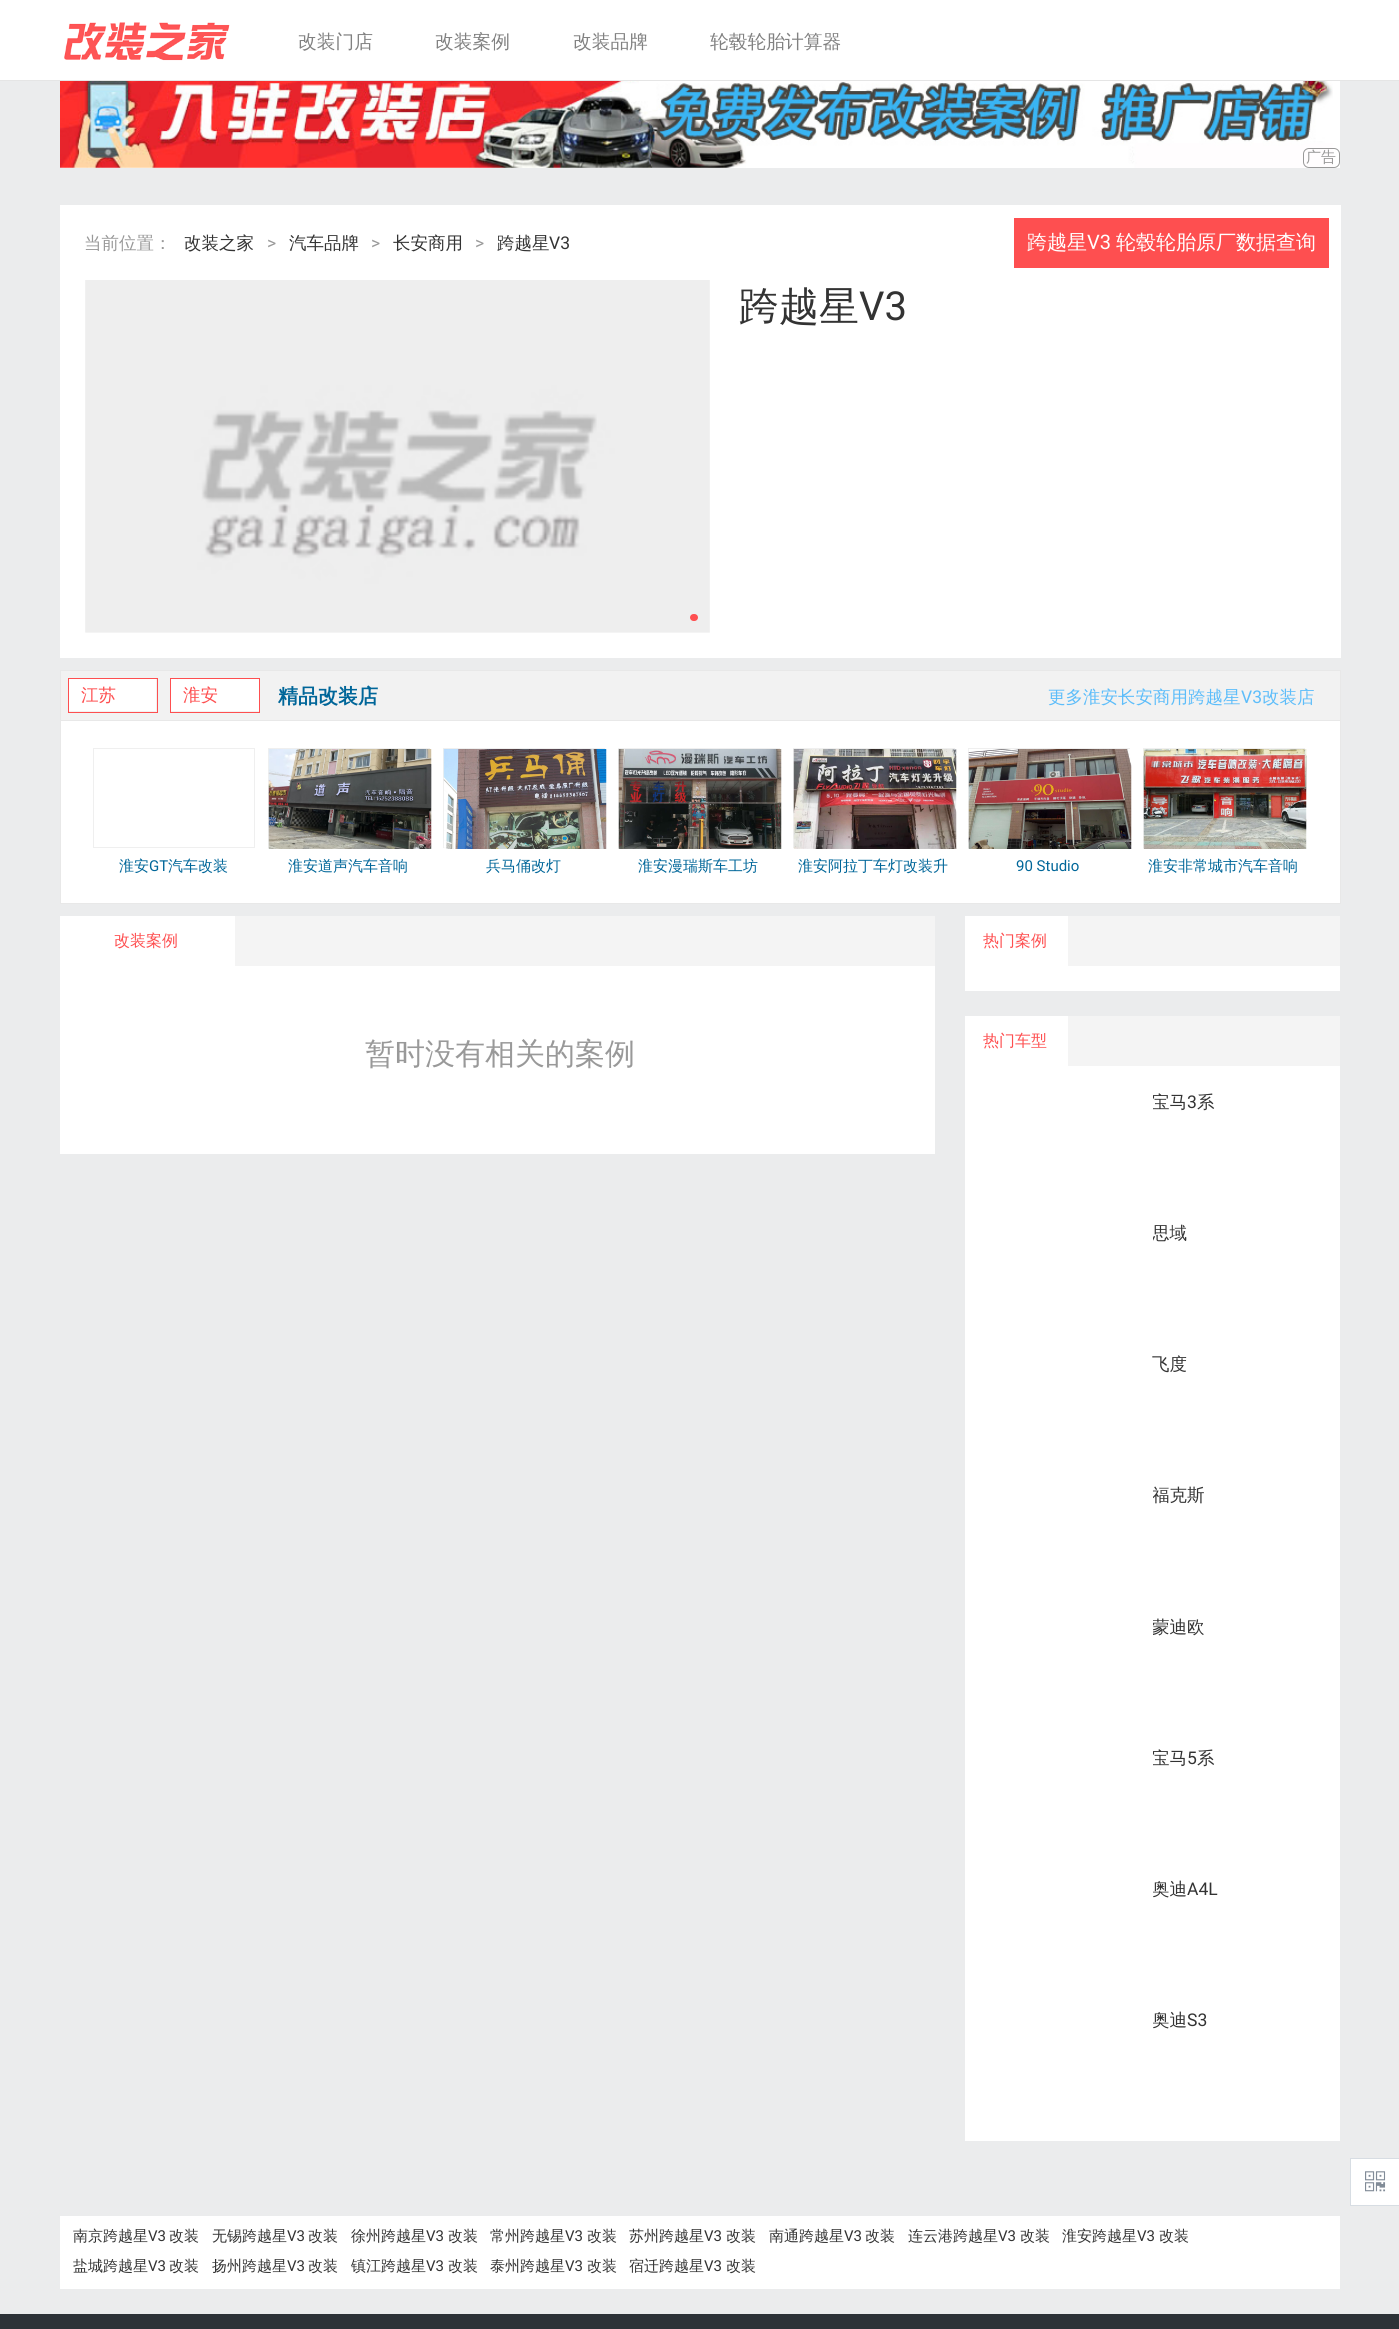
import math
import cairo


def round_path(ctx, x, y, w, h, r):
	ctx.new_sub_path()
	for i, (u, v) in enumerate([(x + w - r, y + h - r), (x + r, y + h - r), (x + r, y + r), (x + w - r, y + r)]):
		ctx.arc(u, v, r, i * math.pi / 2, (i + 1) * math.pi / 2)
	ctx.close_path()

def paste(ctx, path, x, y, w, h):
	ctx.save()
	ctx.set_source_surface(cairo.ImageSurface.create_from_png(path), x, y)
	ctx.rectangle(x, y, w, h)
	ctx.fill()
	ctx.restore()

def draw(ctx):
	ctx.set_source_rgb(0.918, 0.925, 0.929)
	ctx.paint()
	ctx.set_source_rgb(1, 1, 1)
	ctx.rectangle(0, 0, 1399, 80)
	ctx.fill()
	ctx.set_source_rgb(0.898, 0.898, 0.898)
	ctx.rectangle(0, 80, 1399, 1)
	ctx.fill()
	paste(ctx, 'media/1.png', 64, 22, 166, 39)
	ctx.select_font_face('WenQuanYi Zen Hei Medium')
	ctx.set_font_size(18.75)
	ctx.set_source_rgb(0.506, 0.506, 0.506)
	for x, y, s in [
		(298, 48, '改装门店'),
		(435, 48, '改装案例'),
		(573, 48, '改装品牌'),
		(710, 48, '轮毂轮胎计算器'),
	]:
		ctx.move_to(x, y)
		ctx.show_text(s)
	ctx.set_source_rgb(1, 1, 1)
	ctx.rectangle(60, 81, 1280, 87)
	ctx.fill()
	paste(ctx, 'media/2.png', 60, 81, 1273, 87)
	round_path(ctx, 1303.5, 148.5, 36, 19, 5.5)
	ctx.set_source_rgb(0.6, 0.6, 0.6)
	ctx.set_line_width(1)
	ctx.stroke()
	ctx.set_font_size(15)
	ctx.move_to(1306, 162)
	ctx.show_text('广告')
	ctx.set_source_rgb(1, 1, 1)
	ctx.rectangle(60, 205, 1281, 453)
	ctx.fill()
	ctx.set_font_size(17.5)
	ctx.set_source_rgb(0.6, 0.6, 0.6)
	ctx.move_to(84, 249)
	ctx.show_text('当前位置：')
	ctx.set_source_rgb(0.2, 0.2, 0.2)
	ctx.move_to(184, 249)
	ctx.show_text('改装之家')
	ctx.select_font_face('Roboto')
	ctx.set_source_rgb(0.6, 0.6, 0.6)
	ctx.move_to(267, 249)
	ctx.show_text('>')
	ctx.select_font_face('WenQuanYi Zen Hei Medium')
	ctx.set_source_rgb(0.2, 0.2, 0.2)
	ctx.move_to(289, 249)
	ctx.show_text('汽车品牌')
	ctx.select_font_face('Roboto')
	ctx.set_source_rgb(0.6, 0.6, 0.6)
	ctx.move_to(371, 249)
	ctx.show_text('>')
	ctx.select_font_face('WenQuanYi Zen Hei Medium')
	ctx.set_source_rgb(0.2, 0.2, 0.2)
	ctx.move_to(393, 249)
	ctx.show_text('长安商用')
	ctx.select_font_face('Roboto')
	ctx.set_source_rgb(0.6, 0.6, 0.6)
	ctx.move_to(475, 249)
	ctx.show_text('>')
	ctx.select_font_face('WenQuanYi Zen Hei Medium')
	ctx.set_source_rgb(0.2, 0.2, 0.2)
	ctx.move_to(497, 249)
	ctx.show_text('跨越星')
	ctx.select_font_face('Roboto')
	ctx.move_to(549, 249)
	ctx.show_text('V3')
	ctx.set_source_rgb(0.996, 0.31, 0.314)
	ctx.rectangle(1014, 218, 315, 50)
	ctx.fill()
	ctx.select_font_face('WenQuanYi Zen Hei Medium')
	ctx.set_font_size(20)
	ctx.set_source_rgb(1, 1, 1)
	ctx.move_to(1027, 249)
	ctx.show_text('跨越星')
	ctx.select_font_face('Roboto')
	ctx.move_to(1087, 249)
	ctx.show_text('V3')
	ctx.select_font_face('WenQuanYi Zen Hei Medium')
	ctx.move_to(1116, 249)
	ctx.show_text('轮毂轮胎原厂数据查询')
	paste(ctx, 'media/3.png', 85, 280, 625, 353)
	ctx.set_source_rgb(0.996, 0.31, 0.314)
	round_path(ctx, 690, 614, 8, 7, 3.5)
	ctx.fill()
	ctx.set_font_size(40)
	ctx.set_source_rgb(0.2, 0.2, 0.2)
	ctx.move_to(739, 320)
	ctx.show_text('跨越星')
	ctx.select_font_face('Roboto')
	ctx.move_to(859, 320)
	ctx.show_text('V3')
	ctx.set_source_rgb(1, 1, 1)
	ctx.rectangle(61, 721, 1279, 182)
	ctx.fill()
	ctx.rectangle(60.5, 670.5, 1280, 233)
	ctx.set_source_rgb(0.91, 0.91, 0.91)
	ctx.stroke()
	ctx.set_source_rgb(0.949, 0.949, 0.949)
	ctx.rectangle(61, 671, 1279, 49)
	ctx.fill()
	ctx.set_source_rgb(0.91, 0.91, 0.91)
	ctx.rectangle(61, 720, 1279, 1)
	ctx.fill()
	ctx.rectangle(68.5, 678.5, 89, 34)
	ctx.set_source_rgb(0.996, 0.31, 0.314)
	ctx.stroke()
	ctx.set_source_rgb(1, 1, 1)
	ctx.rectangle(69, 679, 87, 32)
	ctx.fill()
	ctx.select_font_face('WenQuanYi Zen Hei Medium')
	ctx.set_font_size(17.5)
	ctx.set_source_rgb(0.996, 0.31, 0.314)
	ctx.move_to(81, 701)
	ctx.show_text('江苏')
	ctx.rectangle(170.5, 678.5, 89, 34)
	ctx.stroke()
	ctx.set_source_rgb(1, 1, 1)
	ctx.rectangle(171, 679, 88, 32)
	ctx.fill()
	ctx.set_source_rgb(0.996, 0.31, 0.314)
	ctx.move_to(183, 701)
	ctx.show_text('淮安')
	ctx.select_font_face('WenQuanYi Zen Hei', cairo.FONT_SLANT_NORMAL, cairo.FONT_WEIGHT_BOLD)
	ctx.set_font_size(20)
	ctx.set_source_rgb(0, 0.4, 0.6)
	ctx.move_to(278, 703)
	ctx.show_text('精品改装店')
	ctx.select_font_face('WenQuanYi Zen Hei Medium')
	ctx.set_font_size(17.5)
	ctx.set_source_rgb(0.365, 0.741, 0.98)
	ctx.move_to(1048, 703)
	ctx.show_text('更多淮安长安商用跨越星')
	ctx.select_font_face('Roboto')
	ctx.move_to(1241, 703)
	ctx.show_text('V3')
	ctx.select_font_face('WenQuanYi Zen Hei Medium')
	ctx.move_to(1262, 703)
	ctx.show_text('改装店')
	ctx.rectangle(93.5, 748.5, 161, 99)
	ctx.set_source_rgb(0.937, 0.937, 0.937)
	ctx.stroke()
	ctx.set_font_size(15)
	ctx.set_source_rgb(0, 0.4, 0.6)
	ctx.move_to(119, 871)
	ctx.show_text('淮安')
	ctx.select_font_face('Roboto')
	ctx.move_to(149, 871)
	ctx.show_text('GT')
	ctx.select_font_face('WenQuanYi Zen Hei Medium')
	ctx.move_to(168, 871)
	ctx.show_text('汽车改装')
	ctx.rectangle(268.5, 748.5, 161, 99)
	ctx.set_source_rgb(0.937, 0.937, 0.937)
	ctx.stroke()
	paste(ctx, 'media/4.png', 268, 749, 164, 100)
	ctx.set_source_rgb(0, 0.4, 0.6)
	ctx.move_to(288, 871)
	ctx.show_text('淮安道声汽车音响')
	ctx.rectangle(443.5, 748.5, 161, 99)
	ctx.set_source_rgb(0.937, 0.937, 0.937)
	ctx.stroke()
	paste(ctx, 'media/5.png', 443, 749, 164, 100)
	ctx.set_source_rgb(0, 0.4, 0.6)
	ctx.move_to(486, 871)
	ctx.show_text('兵马俑改灯')
	ctx.rectangle(618.5, 748.5, 161, 99)
	ctx.set_source_rgb(0.937, 0.937, 0.937)
	ctx.stroke()
	paste(ctx, 'media/6.png', 618, 749, 164, 100)
	ctx.set_source_rgb(0, 0.4, 0.6)
	ctx.move_to(638, 871)
	ctx.show_text('淮安漫瑞斯车工坊')
	ctx.rectangle(793.5, 748.5, 161, 99)
	ctx.set_source_rgb(0.937, 0.937, 0.937)
	ctx.stroke()
	paste(ctx, 'media/7.png', 793, 749, 164, 100)
	ctx.set_source_rgb(0, 0.4, 0.6)
	ctx.move_to(798, 871)
	ctx.show_text('淮安阿拉丁车灯改装升')
	ctx.rectangle(968.5, 748.5, 161, 99)
	ctx.set_source_rgb(0.937, 0.937, 0.937)
	ctx.stroke()
	paste(ctx, 'media/8.png', 968, 749, 164, 100)
	ctx.select_font_face('Roboto')
	ctx.set_source_rgb(0, 0.4, 0.6)
	ctx.move_to(1016, 871)
	ctx.show_text('90 Studio')
	ctx.rectangle(1143.5, 748.5, 161, 99)
	ctx.set_source_rgb(0.937, 0.937, 0.937)
	ctx.stroke()
	paste(ctx, 'media/9.png', 1143, 749, 164, 100)
	ctx.select_font_face('WenQuanYi Zen Hei Medium')
	ctx.set_source_rgb(0, 0.4, 0.6)
	ctx.move_to(1148, 871)
	ctx.show_text('淮安非常城市汽车音响')
	ctx.set_source_rgb(1, 1, 1)
	ctx.rectangle(60, 966, 875, 188)
	ctx.fill()
	ctx.set_source_rgb(0.957, 0.957, 0.957)
	ctx.rectangle(235, 916, 700, 50)
	ctx.fill()
	ctx.set_source_rgb(1, 1, 1)
	ctx.rectangle(60, 916, 175, 50)
	ctx.fill()
	ctx.set_font_size(16)
	ctx.set_source_rgb(0.996, 0.31, 0.314)
	ctx.move_to(114, 946)
	ctx.show_text('改装案例')
	ctx.set_font_size(30)
	ctx.set_source_rgb(0.6, 0.6, 0.6)
	ctx.move_to(365, 1064)
	ctx.show_text('暂时没有相关的案例')
	ctx.set_source_rgb(1, 1, 1)
	ctx.rectangle(965, 966, 375, 25)
	ctx.fill()
	ctx.set_source_rgb(0.957, 0.957, 0.957)
	ctx.rectangle(1068, 916, 272, 50)
	ctx.fill()
	ctx.set_source_rgb(1, 1, 1)
	ctx.rectangle(965, 916, 103, 50)
	ctx.fill()
	ctx.set_font_size(16)
	ctx.set_source_rgb(0.996, 0.31, 0.314)
	ctx.move_to(983, 946)
	ctx.show_text('热门案例')
	ctx.set_source_rgb(1, 1, 1)
	ctx.rectangle(965, 1066, 375, 1075)
	ctx.fill()
	ctx.set_source_rgb(0.957, 0.957, 0.957)
	ctx.rectangle(1068, 1016, 272, 50)
	ctx.fill()
	ctx.set_source_rgb(1, 1, 1)
	ctx.rectangle(965, 1016, 103, 50)
	ctx.fill()
	ctx.set_source_rgb(0.996, 0.31, 0.314)
	ctx.move_to(983, 1046)
	ctx.show_text('热门车型')
	ctx.save()
	ctx.rectangle(1153, 1091, 162, 100)
	ctx.clip()
	ctx.set_font_size(17.5)
	ctx.set_source_rgb(0.2, 0.2, 0.2)
	ctx.move_to(1152, 1108)
	ctx.show_text('宝马')
	ctx.restore()
	ctx.select_font_face('Roboto')
	ctx.set_font_size(17.5)
	ctx.set_source_rgb(0.2, 0.2, 0.2)
	ctx.move_to(1187, 1108)
	ctx.show_text('3')
	ctx.select_font_face('WenQuanYi Zen Hei Medium')
	ctx.move_to(1197, 1108)
	ctx.show_text('系')
	ctx.save()
	ctx.rectangle(1153, 1223, 162, 100)
	ctx.clip()
	ctx.move_to(1152, 1239)
	ctx.show_text('思域')
	ctx.restore()
	ctx.move_to(1152, 1370)
	ctx.show_text('飞度')
	ctx.save()
	ctx.rectangle(1153, 1485, 162, 100)
	ctx.clip()
	ctx.move_to(1152, 1501)
	ctx.show_text('福克斯')
	ctx.restore()
	ctx.save()
	ctx.rectangle(1153, 1616, 162, 100)
	ctx.clip()
	ctx.move_to(1152, 1633)
	ctx.show_text('蒙迪欧')
	ctx.restore()
	ctx.save()
	ctx.rectangle(1153, 1748, 162, 100)
	ctx.clip()
	ctx.move_to(1152, 1764)
	ctx.show_text('宝马')
	ctx.restore()
	ctx.select_font_face('Roboto')
	ctx.move_to(1187, 1764)
	ctx.show_text('5')
	ctx.select_font_face('WenQuanYi Zen Hei Medium')
	ctx.move_to(1197, 1764)
	ctx.show_text('系')
	ctx.save()
	ctx.rectangle(1153, 1879, 162, 100)
	ctx.clip()
	ctx.move_to(1152, 1895)
	ctx.show_text('奥迪')
	ctx.restore()
	ctx.select_font_face('Roboto')
	ctx.move_to(1187, 1895)
	ctx.show_text('A4L')
	ctx.save()
	ctx.rectangle(1153, 2010, 162, 100)
	ctx.clip()
	ctx.select_font_face('WenQuanYi Zen Hei Medium')
	ctx.move_to(1152, 2026)
	ctx.show_text('奥迪')
	ctx.restore()
	ctx.move_to(1187, 2026)
	ctx.show_text('S3')
	ctx.set_source_rgb(1, 1, 1)
	ctx.rectangle(60, 2216, 1280, 73)
	ctx.fill()
	ctx.select_font_face('WenQuanYi Zen Hei Medium')
	ctx.set_font_size(15)
	ctx.set_source_rgb(0.2, 0.2, 0.2)
	ctx.move_to(73, 2241)
	ctx.show_text('南京跨越星')
	ctx.select_font_face('Roboto')
	ctx.move_to(148, 2241)
	ctx.show_text('V3')
	ctx.select_font_face('WenQuanYi Zen Hei Medium')
	ctx.move_to(169, 2241)
	ctx.show_text('改装')
	ctx.move_to(212, 2241)
	ctx.show_text('无锡跨越星')
	ctx.select_font_face('Roboto')
	ctx.move_to(287, 2241)
	ctx.show_text('V3')
	ctx.select_font_face('WenQuanYi Zen Hei Medium')
	ctx.move_to(308, 2241)
	ctx.show_text('改装')
	ctx.move_to(351, 2241)
	ctx.show_text('徐州跨越星')
	ctx.select_font_face('Roboto')
	ctx.move_to(426, 2241)
	ctx.show_text('V3')
	ctx.select_font_face('WenQuanYi Zen Hei Medium')
	ctx.move_to(448, 2241)
	ctx.show_text('改装')
	ctx.move_to(490, 2241)
	ctx.show_text('常州跨越星')
	ctx.select_font_face('Roboto')
	ctx.move_to(565, 2241)
	ctx.show_text('V3')
	ctx.select_font_face('WenQuanYi Zen Hei Medium')
	ctx.move_to(587, 2241)
	ctx.show_text('改装')
	ctx.move_to(629, 2241)
	ctx.show_text('苏州跨越星')
	ctx.select_font_face('Roboto')
	ctx.move_to(704, 2241)
	ctx.show_text('V3')
	ctx.select_font_face('WenQuanYi Zen Hei Medium')
	ctx.move_to(726, 2241)
	ctx.show_text('改装')
	ctx.move_to(769, 2241)
	ctx.show_text('南通跨越星')
	ctx.select_font_face('Roboto')
	ctx.move_to(844, 2241)
	ctx.show_text('V3')
	ctx.select_font_face('WenQuanYi Zen Hei Medium')
	ctx.move_to(865, 2241)
	ctx.show_text('改装')
	ctx.move_to(908, 2241)
	ctx.show_text('连云港跨越星')
	ctx.select_font_face('Roboto')
	ctx.move_to(998, 2241)
	ctx.show_text('V3')
	ctx.select_font_face('WenQuanYi Zen Hei Medium')
	ctx.move_to(1020, 2241)
	ctx.show_text('改装')
	ctx.move_to(1062, 2241)
	ctx.show_text('淮安跨越星')
	ctx.select_font_face('Roboto')
	ctx.move_to(1137, 2241)
	ctx.show_text('V3')
	ctx.select_font_face('WenQuanYi Zen Hei Medium')
	ctx.move_to(1159, 2241)
	ctx.show_text('改装')
	ctx.move_to(73, 2271)
	ctx.show_text('盐城跨越星')
	ctx.select_font_face('Roboto')
	ctx.move_to(148, 2271)
	ctx.show_text('V3')
	ctx.select_font_face('WenQuanYi Zen Hei Medium')
	ctx.move_to(169, 2271)
	ctx.show_text('改装')
	ctx.move_to(212, 2271)
	ctx.show_text('扬州跨越星')
	ctx.select_font_face('Roboto')
	ctx.move_to(287, 2271)
	ctx.show_text('V3')
	ctx.select_font_face('WenQuanYi Zen Hei Medium')
	ctx.move_to(308, 2271)
	ctx.show_text('改装')
	ctx.move_to(351, 2271)
	ctx.show_text('镇江跨越星')
	ctx.select_font_face('Roboto')
	ctx.move_to(426, 2271)
	ctx.show_text('V3')
	ctx.select_font_face('WenQuanYi Zen Hei Medium')
	ctx.move_to(448, 2271)
	ctx.show_text('改装')
	ctx.move_to(490, 2271)
	ctx.show_text('泰州跨越星')
	ctx.select_font_face('Roboto')
	ctx.move_to(565, 2271)
	ctx.show_text('V3')
	ctx.select_font_face('WenQuanYi Zen Hei Medium')
	ctx.move_to(587, 2271)
	ctx.show_text('改装')
	ctx.move_to(629, 2271)
	ctx.show_text('宿迁跨越星')
	ctx.select_font_face('Roboto')
	ctx.move_to(704, 2271)
	ctx.show_text('V3')
	ctx.select_font_face('WenQuanYi Zen Hei Medium')
	ctx.move_to(726, 2271)
	ctx.show_text('改装')
	ctx.set_source_rgb(1, 1, 1)
	ctx.rectangle(1350.5, 2158.5, 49, 47)
	ctx.fill_preserve()
	ctx.set_source_rgb(0.843, 0.867, 0.89)
	ctx.stroke()
	paste(ctx, 'media/10.png', 1365, 2171, 21, 21)
	ctx.set_source_rgb(0.176, 0.196, 0.216)
	ctx.rectangle(0, 2314, 1399, 15)
	ctx.fill()


surface = cairo.ImageSurface(cairo.FORMAT_RGB24, 1399, 2329)
ctx = cairo.Context(surface)
options = cairo.FontOptions()
options.set_hint_metrics(cairo.HINT_METRICS_OFF)
options.set_hint_style(cairo.HINT_STYLE_NONE)
ctx.set_font_options(options)
ctx.set_miter_limit(4)
draw(ctx)
surface.write_to_png('image.png')
